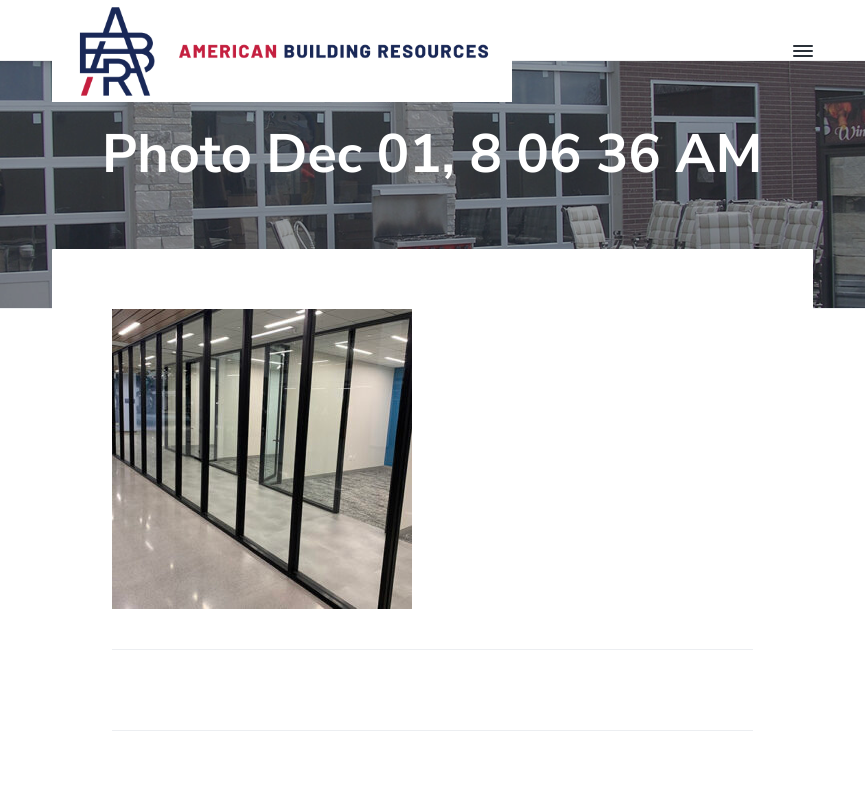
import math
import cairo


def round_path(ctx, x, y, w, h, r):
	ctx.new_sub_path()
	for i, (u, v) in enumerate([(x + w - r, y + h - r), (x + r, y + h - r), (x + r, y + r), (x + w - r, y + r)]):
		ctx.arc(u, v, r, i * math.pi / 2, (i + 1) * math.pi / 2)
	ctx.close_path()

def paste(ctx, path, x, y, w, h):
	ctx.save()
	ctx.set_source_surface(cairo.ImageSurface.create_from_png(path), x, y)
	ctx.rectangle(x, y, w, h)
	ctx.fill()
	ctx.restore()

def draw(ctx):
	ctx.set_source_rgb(1, 1, 1)
	ctx.paint()
	ctx.set_source_rgb(0.933, 0.937, 0.941)
	ctx.rectangle(0, 60, 865, 1)
	ctx.fill()
	paste(ctx, 'media/2.png', 0, 61, 865, 247)
	paste(ctx, 'media/1.png', 52, 7, 460, 95)
	ctx.set_source_rgb(0.165, 0.192, 0.224)
	round_path(ctx, 793, 50, 20, 2, 1)
	ctx.fill()
	round_path(ctx, 793, 45, 20, 2, 1)
	ctx.fill()
	round_path(ctx, 793, 55, 20, 2, 1)
	ctx.fill()
	ctx.set_source_rgb(0.925, 0.933, 0.945)
	ctx.rectangle(0, 308, 865, 1)
	ctx.fill()
	ctx.select_font_face('Nunito Sans', cairo.FONT_SLANT_NORMAL, cairo.FONT_WEIGHT_BOLD)
	ctx.set_font_size(54)
	ctx.set_source_rgb(1, 1, 1)
	ctx.move_to(102, 172)
	ctx.show_text('Photo Dec 01, 8 06 36 AM')
	round_path(ctx, 52, 249, 761, 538, 1)
	ctx.fill()
	paste(ctx, 'media/3.png', 112, 309, 300, 300)
	ctx.set_source_rgb(0.925, 0.933, 0.945)
	ctx.rectangle(112, 649, 641, 1)
	ctx.fill()
	ctx.rectangle(112, 730, 641, 1)
	ctx.fill()


surface = cairo.ImageSurface(cairo.FORMAT_RGB24, 865, 786)
ctx = cairo.Context(surface)
options = cairo.FontOptions()
options.set_hint_metrics(cairo.HINT_METRICS_OFF)
options.set_hint_style(cairo.HINT_STYLE_NONE)
ctx.set_font_options(options)
ctx.set_miter_limit(4)
draw(ctx)
surface.write_to_png('image.png')
